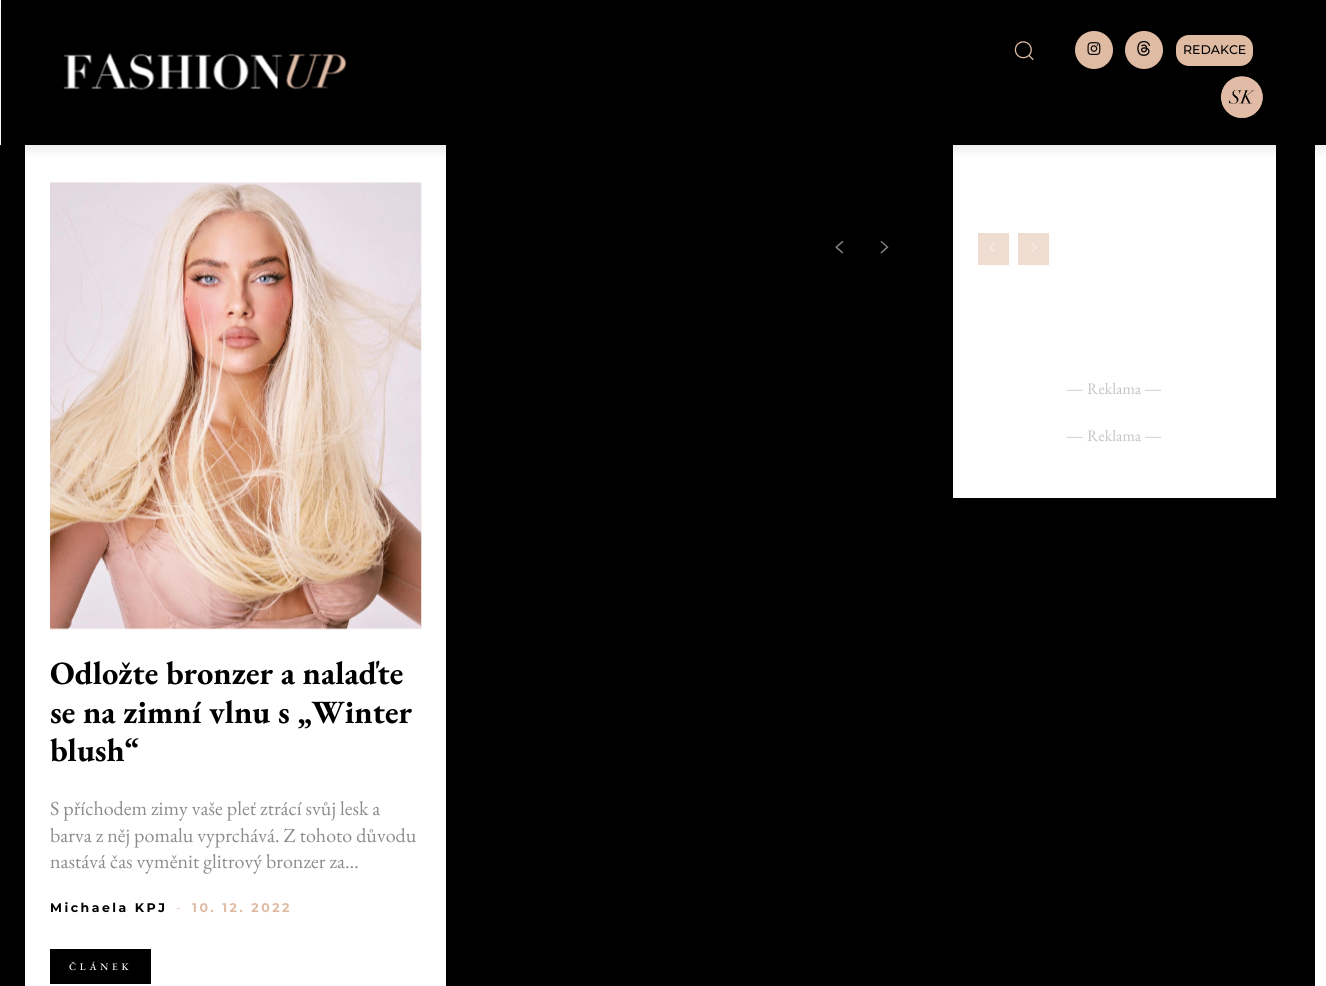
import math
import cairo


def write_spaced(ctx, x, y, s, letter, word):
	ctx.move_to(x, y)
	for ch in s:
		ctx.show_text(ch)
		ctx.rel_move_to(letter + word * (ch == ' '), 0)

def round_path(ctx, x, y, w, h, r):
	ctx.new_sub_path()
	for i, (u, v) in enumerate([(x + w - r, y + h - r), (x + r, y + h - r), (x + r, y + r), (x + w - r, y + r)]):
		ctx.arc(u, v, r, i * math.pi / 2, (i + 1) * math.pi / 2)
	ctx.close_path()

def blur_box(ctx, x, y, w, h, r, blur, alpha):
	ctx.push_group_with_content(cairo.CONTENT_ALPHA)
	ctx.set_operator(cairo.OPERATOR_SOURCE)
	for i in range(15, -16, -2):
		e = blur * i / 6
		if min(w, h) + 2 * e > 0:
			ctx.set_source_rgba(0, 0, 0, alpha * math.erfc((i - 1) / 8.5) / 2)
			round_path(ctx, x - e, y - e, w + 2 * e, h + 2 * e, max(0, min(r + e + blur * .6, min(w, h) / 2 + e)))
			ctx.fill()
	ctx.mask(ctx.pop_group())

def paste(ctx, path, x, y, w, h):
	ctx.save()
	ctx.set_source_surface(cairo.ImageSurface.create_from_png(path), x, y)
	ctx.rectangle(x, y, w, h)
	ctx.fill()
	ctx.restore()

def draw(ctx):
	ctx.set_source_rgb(1, 1, 1)
	ctx.paint()
	ctx.set_source_rgb(0, 0, 0)
	ctx.rectangle(1, 0, 1325, 145)
	ctx.fill()
	ctx.set_source_rgb(0.878, 0.733, 0.643)
	ctx.arc(1094, 50, 19, 0, 2 * math.pi)
	ctx.fill()
	paste(ctx, 'media/2.png', 1087, 42, 14, 13)
	ctx.arc(1144, 50, 19, 0, 2 * math.pi)
	ctx.fill()
	paste(ctx, 'media/3.png', 1137, 40, 14, 16)
	round_path(ctx, 1176, 35, 77, 31, 13)
	ctx.fill()
	paste(ctx, 'media/4.png', 1220, 76, 43, 42)
	paste(ctx, 'media/5.png', 63, 53, 284, 37)
	ctx.set_source_rgb(0, 0, 0)
	ctx.rectangle(0, 145, 1315, 841)
	ctx.fill()
	ctx.set_source_rgb(1, 1, 1)
	ctx.rectangle(953, 145, 323, 353)
	ctx.rectangle(25, 145, 421, 841)
	ctx.fill()
	ctx.save()
	ctx.set_fill_rule(cairo.FILL_RULE_EVEN_ODD)
	ctx.new_path()
	ctx.move_to(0, 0)
	ctx.line_to(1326, 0)
	ctx.line_to(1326, 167)
	ctx.line_to(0, 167)
	ctx.close_path()
	ctx.move_to(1, 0)
	ctx.line_to(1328, 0)
	ctx.line_to(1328, 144)
	ctx.line_to(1, 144)
	ctx.close_path()
	ctx.clip()
	ctx.set_source_rgb(0, 0, 0)
	blur_box(ctx, 1, 8, 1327, 143, 0, 5, 0.08)
	ctx.restore()
	paste(ctx, 'media/1.png', 1014, 41, 20, 19)
	ctx.select_font_face('Montserrat Medium')
	ctx.set_font_size(12.5)
	ctx.set_source_rgb(0, 0, 0)
	ctx.move_to(1183, 54)
	ctx.show_text('REDAKCE')
	paste(ctx, 'media/6.png', 835, 240, 9, 14)
	paste(ctx, 'media/7.png', 880, 241, 9, 13)
	ctx.set_source_rgb(0.941, 0.867, 0.824)
	ctx.rectangle(978, 233, 31, 32)
	ctx.fill()
	paste(ctx, 'media/8.png', 989, 243, 6, 9)
	ctx.rectangle(1018, 233, 31, 32)
	ctx.fill()
	paste(ctx, 'media/9.png', 1031, 243, 6, 9)
	ctx.select_font_face('Liberation Serif')
	ctx.set_font_size(16)
	ctx.set_source_rgb(0.769, 0.769, 0.769)
	ctx.move_to(1067, 394)
	ctx.show_text('―')
	ctx.select_font_face('EB Garamond')
	ctx.move_to(1087, 394)
	ctx.show_text('Reklama')
	ctx.select_font_face('Liberation Serif')
	ctx.move_to(1145, 394)
	ctx.show_text('―')
	ctx.move_to(1067, 441)
	ctx.show_text('―')
	ctx.select_font_face('EB Garamond')
	ctx.move_to(1087, 441)
	ctx.show_text('Reklama')
	ctx.select_font_face('Liberation Serif')
	ctx.move_to(1145, 441)
	ctx.show_text('―')
	paste(ctx, 'media/10.png', 50, 182, 372, 448)
	ctx.select_font_face('EB Garamond', cairo.FONT_SLANT_NORMAL, cairo.FONT_WEIGHT_BOLD)
	ctx.set_font_size(32.5)
	ctx.set_source_rgb(0, 0, 0)
	for x, y, s in [
		(50, 684, 'Odložte bronzer a nalaďte'),
		(50, 723, 'se na zimní vlnu s „Winter'),
		(50, 761, 'blush“'),
	]:
		ctx.move_to(x, y)
		ctx.show_text(s)
	ctx.select_font_face('EB Garamond')
	ctx.set_font_size(20)
	ctx.set_source_rgb(0.549, 0.549, 0.549)
	for x, y, s in [
		(50, 815, 'S příchodem zimy vaše pleť ztrácí svůj lesk a'),
		(50, 842, 'barva z něj pomalu vyprchává. Z tohoto důvodu'),
		(50, 868, 'nastává čas vyměnit glitrový bronzer za…'),
	]:
		ctx.move_to(x, y)
		ctx.show_text(s)
	ctx.select_font_face('Montserrat', cairo.FONT_SLANT_NORMAL, cairo.FONT_WEIGHT_BOLD)
	ctx.set_font_size(12.5)
	ctx.set_source_rgb(0, 0, 0)
	write_spaced(ctx, 50, 912, 'Michaela KPJ', 2.5, 0)
	ctx.select_font_face('Montserrat')
	ctx.set_source_rgb(0.878, 0.733, 0.643)
	write_spaced(ctx, 176, 912, '-', 2.5, 0)
	ctx.select_font_face('Montserrat', cairo.FONT_SLANT_NORMAL, cairo.FONT_WEIGHT_BOLD)
	write_spaced(ctx, 192, 912, '10. 12. 2022', 2.5, 0)
	ctx.set_source_rgb(0, 0, 0)
	ctx.rectangle(50, 949, 101, 35)
	ctx.fill()
	ctx.select_font_face('EB Garamond Medium')
	ctx.set_font_size(10)
	ctx.set_source_rgb(1, 1, 1)
	write_spaced(ctx, 69, 970, 'ČLÁNEK', 3.75, 0)


surface = cairo.ImageSurface(cairo.FORMAT_RGB24, 1326, 986)
ctx = cairo.Context(surface)
options = cairo.FontOptions()
options.set_hint_metrics(cairo.HINT_METRICS_OFF)
options.set_hint_style(cairo.HINT_STYLE_NONE)
ctx.set_font_options(options)
ctx.set_miter_limit(4)
draw(ctx)
surface.write_to_png('image.png')
